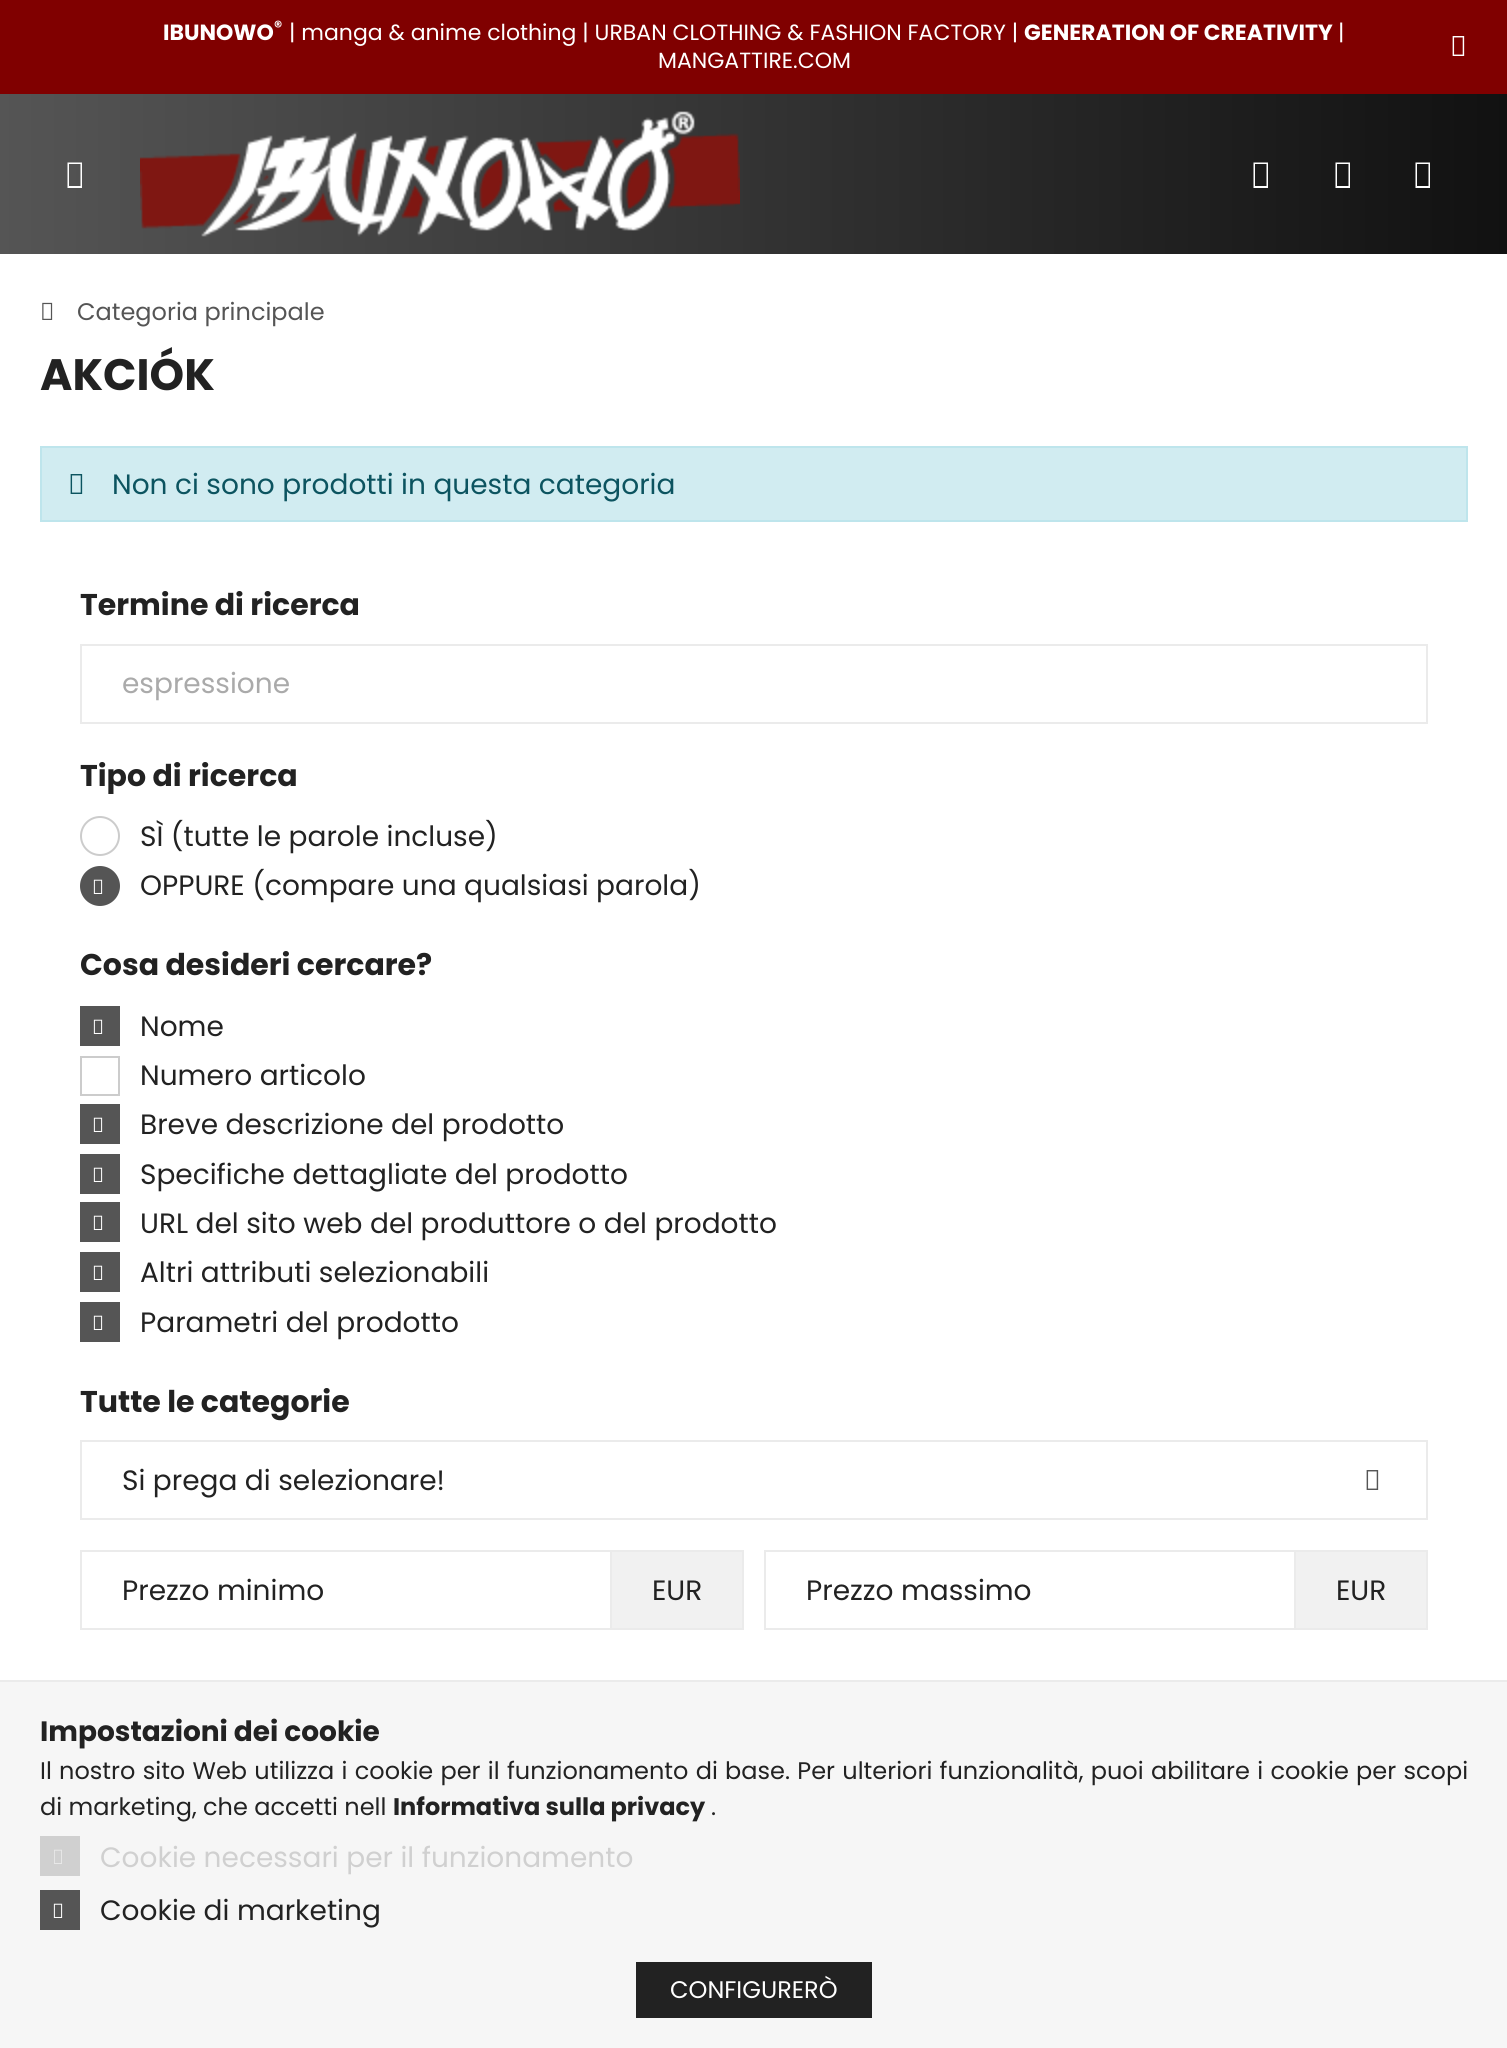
import math
import cairo


def write_spaced(ctx, x, y, s, letter, word):
	ctx.move_to(x, y)
	for ch in s:
		ctx.show_text(ch)
		ctx.rel_move_to(letter + word * (ch == ' '), 0)

def paste(ctx, path, x, y, w, h):
	ctx.save()
	ctx.set_source_surface(cairo.ImageSurface.create_from_png(path), x, y)
	ctx.rectangle(x, y, w, h)
	ctx.fill()
	ctx.restore()

def draw(ctx):
	ctx.set_source_rgb(1, 1, 1)
	ctx.paint()
	ctx.set_source_rgb(0.502, 0, 0)
	ctx.rectangle(0, 0, 1507, 94)
	ctx.fill()
	ctx.select_font_face('Poppins', cairo.FONT_SLANT_NORMAL, cairo.FONT_WEIGHT_BOLD)
	ctx.set_font_size(22)
	ctx.set_source_rgb(1, 1, 1)
	ctx.move_to(163, 40)
	ctx.show_text('IBUNOWO')
	ctx.set_font_size(16)
	ctx.move_to(274, 32)
	ctx.show_text('®')
	ctx.select_font_face('Poppins')
	ctx.set_font_size(22)
	ctx.move_to(289, 40)
	ctx.show_text('| manga & anime clothing | URBAN CLOTHING & FASHION FACTORY |')
	ctx.select_font_face('Poppins', cairo.FONT_SLANT_NORMAL, cairo.FONT_WEIGHT_BOLD)
	ctx.move_to(1024, 40)
	ctx.show_text('GENERATION OF CREATIVITY')
	ctx.select_font_face('Poppins')
	ctx.move_to(1338, 40)
	ctx.show_text('|')
	ctx.move_to(658, 68)
	ctx.show_text('MANGATTIRE.COM')
	paste(ctx, 'media/1.png', 1452, 36, 13, 20)
	gradient = cairo.LinearGradient(0, 174, 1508, 174)
	gradient.add_color_stop_rgba(0, 0.333, 0.333, 0.333, 1)
	gradient.add_color_stop_rgba(1, 0.067, 0.067, 0.067, 1)
	ctx.set_source(gradient)
	ctx.rectangle(0, 94, 1507, 160)
	ctx.fill()
	ctx.set_source_rgb(1, 1, 1)
	ctx.new_path()
	ctx.move_to(67.5, 188)
	ctx.line_to(67.5, 162.5)
	ctx.line_to(82, 162.5)
	ctx.line_to(82, 188)
	ctx.close_path()
	ctx.move_to(69, 186)
	ctx.line_to(80.5, 186)
	ctx.line_to(80.5, 164)
	ctx.line_to(69, 164)
	ctx.close_path()
	ctx.fill()
	paste(ctx, 'media/2.png', 140, 111, 600, 126)
	ctx.new_path()
	ctx.move_to(1253.5, 188)
	ctx.line_to(1253.5, 162.5)
	ctx.line_to(1268, 162.5)
	ctx.line_to(1268, 188)
	ctx.close_path()
	ctx.move_to(1255, 186)
	ctx.line_to(1266.5, 186)
	ctx.line_to(1266.5, 164)
	ctx.line_to(1255, 164)
	ctx.close_path()
	ctx.fill()
	ctx.new_path()
	ctx.move_to(1335.5, 188)
	ctx.line_to(1335.5, 162.5)
	ctx.line_to(1350, 162.5)
	ctx.line_to(1350, 188)
	ctx.close_path()
	ctx.move_to(1337, 186)
	ctx.line_to(1348.5, 186)
	ctx.line_to(1348.5, 164)
	ctx.line_to(1337, 164)
	ctx.close_path()
	ctx.fill()
	ctx.new_path()
	ctx.move_to(1415.5, 188)
	ctx.line_to(1415.5, 162.5)
	ctx.line_to(1430, 162.5)
	ctx.line_to(1430, 188)
	ctx.close_path()
	ctx.move_to(1417, 186)
	ctx.line_to(1428.5, 186)
	ctx.line_to(1428.5, 164)
	ctx.line_to(1417, 164)
	ctx.close_path()
	ctx.fill()
	paste(ctx, 'media/3.png', 42, 302, 11, 18)
	ctx.set_font_size(24)
	ctx.set_source_rgb(0.333, 0.333, 0.333)
	ctx.move_to(77, 320)
	ctx.show_text('Categoria principale')
	ctx.select_font_face('Poppins', cairo.FONT_SLANT_NORMAL, cairo.FONT_WEIGHT_BOLD)
	ctx.set_font_size(44)
	ctx.set_source_rgb(0.133, 0.133, 0.133)
	ctx.move_to(40, 390)
	ctx.show_text('AKCIÓK')
	ctx.set_source_rgb(0.82, 0.925, 0.945)
	ctx.rectangle(41, 447, 1426, 74)
	ctx.fill_preserve()
	ctx.set_source_rgb(0.745, 0.898, 0.922)
	ctx.stroke()
	paste(ctx, 'media/4.png', 70, 474, 13, 20)
	ctx.select_font_face('Poppins')
	ctx.set_font_size(28)
	ctx.set_source_rgb(0.047, 0.329, 0.376)
	ctx.move_to(112, 494)
	ctx.show_text('Non ci sono prodotti in questa categoria')
	ctx.select_font_face('Poppins', cairo.FONT_SLANT_NORMAL, cairo.FONT_WEIGHT_BOLD)
	ctx.set_font_size(30)
	ctx.set_source_rgb(0.133, 0.133, 0.133)
	ctx.move_to(80, 615)
	ctx.show_text('Termine di ricerca')
	ctx.rectangle(81, 645, 1346, 78)
	ctx.set_source_rgb(0.918, 0.918, 0.918)
	ctx.stroke()
	ctx.select_font_face('Poppins')
	ctx.set_font_size(28)
	ctx.set_source_rgb(0.667, 0.667, 0.667)
	ctx.move_to(122, 693)
	ctx.show_text('espressione')
	ctx.select_font_face('Poppins', cairo.FONT_SLANT_NORMAL, cairo.FONT_WEIGHT_BOLD)
	ctx.set_font_size(30)
	ctx.set_source_rgb(0.133, 0.133, 0.133)
	ctx.move_to(80, 786)
	ctx.show_text('Tipo di ricerca')
	ctx.new_path()
	ctx.arc(100, 836, 19, 0, 2 * math.pi)
	ctx.set_source_rgb(0.8, 0.8, 0.8)
	ctx.stroke()
	ctx.select_font_face('Poppins')
	ctx.set_font_size(28)
	ctx.set_source_rgb(0.133, 0.133, 0.133)
	ctx.move_to(140, 846)
	ctx.show_text('SÌ (tutte le parole incluse)')
	ctx.set_source_rgb(0.333, 0.333, 0.333)
	ctx.new_path()
	ctx.arc(100, 886, 19, 0, 2 * math.pi)
	ctx.fill_preserve()
	ctx.stroke()
	paste(ctx, 'media/5.png', 93, 879, 10, 15)
	ctx.set_source_rgb(0.133, 0.133, 0.133)
	ctx.move_to(140, 895)
	ctx.show_text('OPPURE (compare una qualsiasi parola)')
	ctx.select_font_face('Poppins', cairo.FONT_SLANT_NORMAL, cairo.FONT_WEIGHT_BOLD)
	ctx.set_font_size(30)
	ctx.move_to(80, 975)
	ctx.show_text('Cosa desideri cercare?')
	ctx.set_source_rgb(0.333, 0.333, 0.333)
	ctx.rectangle(80, 1006, 40, 40)
	ctx.fill()
	paste(ctx, 'media/5.png', 93, 1019, 10, 15)
	ctx.select_font_face('Poppins')
	ctx.set_font_size(28)
	ctx.set_source_rgb(0.133, 0.133, 0.133)
	ctx.move_to(140, 1036)
	ctx.show_text('Nome')
	ctx.rectangle(81, 1057, 38, 38)
	ctx.set_source_rgb(0.8, 0.8, 0.8)
	ctx.stroke()
	ctx.set_source_rgb(0.133, 0.133, 0.133)
	ctx.move_to(140, 1085)
	ctx.show_text('Numero articolo')
	ctx.set_source_rgb(0.333, 0.333, 0.333)
	ctx.rectangle(80, 1104, 40, 40)
	ctx.fill()
	paste(ctx, 'media/5.png', 93, 1117, 10, 15)
	ctx.set_source_rgb(0.133, 0.133, 0.133)
	ctx.move_to(140, 1134)
	ctx.show_text('Breve descrizione del prodotto')
	ctx.set_source_rgb(0.333, 0.333, 0.333)
	ctx.rectangle(80, 1154, 40, 40)
	ctx.fill()
	paste(ctx, 'media/5.png', 93, 1167, 10, 15)
	ctx.set_source_rgb(0.133, 0.133, 0.133)
	ctx.move_to(140, 1184)
	ctx.show_text('Specifiche dettagliate del prodotto')
	ctx.set_source_rgb(0.333, 0.333, 0.333)
	ctx.rectangle(80, 1202, 40, 40)
	ctx.fill()
	paste(ctx, 'media/5.png', 93, 1215, 10, 15)
	ctx.set_source_rgb(0.133, 0.133, 0.133)
	ctx.move_to(140, 1233)
	ctx.show_text('URL del sito web del produttore o del prodotto')
	ctx.set_source_rgb(0.333, 0.333, 0.333)
	ctx.rectangle(80, 1252, 40, 40)
	ctx.fill()
	paste(ctx, 'media/5.png', 93, 1265, 10, 15)
	ctx.set_source_rgb(0.133, 0.133, 0.133)
	ctx.move_to(140, 1282)
	ctx.show_text('Altri attributi selezionabili')
	ctx.set_source_rgb(0.333, 0.333, 0.333)
	ctx.rectangle(80, 1302, 40, 40)
	ctx.fill()
	paste(ctx, 'media/5.png', 93, 1315, 10, 15)
	ctx.set_source_rgb(0.133, 0.133, 0.133)
	ctx.move_to(140, 1332)
	ctx.show_text('Parametri del prodotto')
	ctx.select_font_face('Poppins', cairo.FONT_SLANT_NORMAL, cairo.FONT_WEIGHT_BOLD)
	ctx.set_font_size(30)
	ctx.move_to(80, 1412)
	ctx.show_text('Tutte le categorie')
	ctx.rectangle(81, 1441, 1346, 78)
	ctx.set_source_rgb(0.918, 0.918, 0.918)
	ctx.stroke()
	ctx.select_font_face('Poppins')
	ctx.set_font_size(28)
	ctx.set_source_rgb(0.133, 0.133, 0.133)
	ctx.move_to(122, 1490)
	ctx.show_text('Si prega di selezionare!')
	paste(ctx, 'media/6.png', 1366, 1470, 13, 20)
	ctx.set_source_rgb(0.945, 0.945, 0.945)
	ctx.rectangle(611, 1551, 132, 78)
	ctx.fill_preserve()
	ctx.set_source_rgb(0.918, 0.918, 0.918)
	ctx.stroke()
	ctx.rectangle(81, 1551, 530, 78)
	ctx.stroke()
	ctx.set_source_rgb(0.133, 0.133, 0.133)
	ctx.move_to(122, 1600)
	ctx.show_text('Prezzo minimo')
	ctx.move_to(652, 1600)
	ctx.show_text('EUR')
	ctx.set_source_rgb(0.945, 0.945, 0.945)
	ctx.rectangle(1295, 1551, 132, 78)
	ctx.fill_preserve()
	ctx.set_source_rgb(0.918, 0.918, 0.918)
	ctx.stroke()
	ctx.rectangle(765, 1551, 530, 78)
	ctx.stroke()
	ctx.set_source_rgb(0.133, 0.133, 0.133)
	ctx.move_to(806, 1600)
	ctx.show_text('Prezzo massimo')
	ctx.move_to(1336, 1600)
	ctx.show_text('EUR')
	ctx.set_source_rgb(0.961, 0.961, 0.961)
	ctx.rectangle(0, 1682, 1507, 366)
	ctx.fill()
	ctx.set_source_rgb(0.918, 0.918, 0.918)
	ctx.rectangle(0, 1680, 1507, 2)
	ctx.fill()
	ctx.select_font_face('Poppins', cairo.FONT_SLANT_NORMAL, cairo.FONT_WEIGHT_BOLD)
	ctx.set_source_rgb(0.133, 0.133, 0.133)
	ctx.move_to(40, 1741)
	ctx.show_text('Impostazioni dei cookie')
	ctx.select_font_face('Poppins')
	ctx.set_font_size(24)
	write_spaced(ctx, 40, 1779, 'Il nostro sito Web utilizza i cookie per il funzionamento di base. Per ulteriori funzionalità, puoi abilitare i cookie per scopi', 0, 0.9)
	ctx.move_to(40, 1815)
	ctx.show_text('di marketing, che accetti nell')
	ctx.select_font_face('Poppins', cairo.FONT_SLANT_NORMAL, cairo.FONT_WEIGHT_BOLD)
	ctx.move_to(393, 1815)
	ctx.show_text('Informativa sulla privacy')
	ctx.select_font_face('Poppins')
	ctx.move_to(711, 1815)
	ctx.show_text('.')
	ctx.set_source_rgb(0.816, 0.816, 0.816)
	ctx.rectangle(40, 1836, 40, 40)
	ctx.fill()
	paste(ctx, 'media/7.png', 54, 1849, 8, 15)
	ctx.set_font_size(28)
	ctx.move_to(100, 1867)
	ctx.show_text('Cookie necessari per il funzionamento')
	ctx.set_source_rgb(0.333, 0.333, 0.333)
	ctx.rectangle(40, 1890, 40, 40)
	ctx.fill()
	paste(ctx, 'media/5.png', 53, 1903, 10, 15)
	ctx.set_source_rgb(0.133, 0.133, 0.133)
	ctx.move_to(100, 1920)
	ctx.show_text('Cookie di marketing')
	gradient = cairo.LinearGradient(164, 1990, 872, 1990)
	gradient.add_color_stop_rgba(0, 0.333, 0.333, 0.333, 1)
	gradient.add_color_stop_rgba(0.33, 0.067, 0.067, 0.067, 1)
	gradient.add_color_stop_rgba(0.67, 0.133, 0.133, 0.133, 1)
	gradient.add_color_stop_rgba(1, 0.133, 0.133, 0.133, 1)
	ctx.set_source(gradient)
	ctx.rectangle(636, 1962, 236, 56)
	ctx.fill()
	ctx.set_font_size(24)
	ctx.set_source_rgb(1, 1, 1)
	ctx.move_to(670, 1998)
	ctx.show_text('CONFIGURERÒ')


surface = cairo.ImageSurface(cairo.FORMAT_RGB24, 1507, 2048)
ctx = cairo.Context(surface)
options = cairo.FontOptions()
options.set_hint_metrics(cairo.HINT_METRICS_OFF)
options.set_hint_style(cairo.HINT_STYLE_NONE)
ctx.set_font_options(options)
ctx.set_miter_limit(4)
draw(ctx)
surface.write_to_png('image.png')
